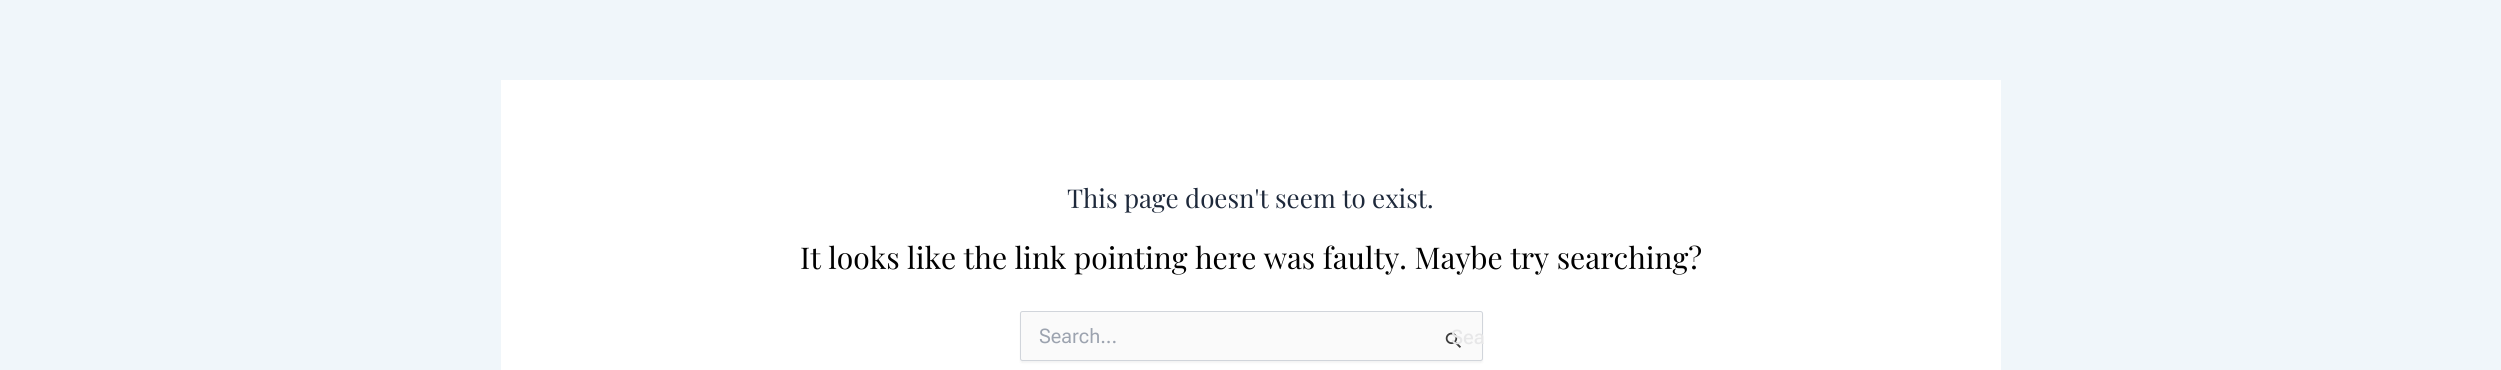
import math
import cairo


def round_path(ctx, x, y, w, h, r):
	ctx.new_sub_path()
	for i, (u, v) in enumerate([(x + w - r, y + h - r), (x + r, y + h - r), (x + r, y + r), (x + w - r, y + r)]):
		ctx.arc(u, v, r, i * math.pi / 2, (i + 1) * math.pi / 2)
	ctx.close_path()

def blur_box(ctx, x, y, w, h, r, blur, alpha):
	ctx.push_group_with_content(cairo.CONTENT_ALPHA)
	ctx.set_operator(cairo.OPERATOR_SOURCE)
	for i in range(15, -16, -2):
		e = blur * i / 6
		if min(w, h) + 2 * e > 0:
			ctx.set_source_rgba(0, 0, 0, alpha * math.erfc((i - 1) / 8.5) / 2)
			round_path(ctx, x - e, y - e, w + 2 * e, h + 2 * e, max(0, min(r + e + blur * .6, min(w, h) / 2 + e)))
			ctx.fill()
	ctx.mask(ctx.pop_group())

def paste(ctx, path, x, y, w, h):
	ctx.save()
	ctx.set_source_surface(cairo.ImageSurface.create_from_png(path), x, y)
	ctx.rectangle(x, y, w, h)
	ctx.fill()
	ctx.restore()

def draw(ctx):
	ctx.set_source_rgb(0.941, 0.961, 0.98)
	ctx.paint()
	ctx.set_source_rgb(1, 1, 1)
	ctx.rectangle(501, 80, 1500, 290)
	ctx.fill()
	ctx.select_font_face('Playfair Display')
	ctx.set_font_size(25.9)
	ctx.set_source_rgb(0.118, 0.161, 0.231)
	ctx.move_to(1067, 208)
	ctx.show_text('This page doesn\'t seem to exist.')
	ctx.set_font_size(30)
	ctx.set_source_rgb(0, 0, 0)
	ctx.move_to(800, 269)
	ctx.show_text('It looks like the link pointing here was faulty. Maybe try searching?')
	ctx.set_source_rgb(0, 0, 0)
	blur_box(ctx, 1020, 313, 463, 50, 2.5, 1, 0.05)
	ctx.set_source_rgb(0.98, 0.98, 0.98)
	round_path(ctx, 1020.5, 311.5, 462, 49, 2)
	ctx.fill_preserve()
	ctx.set_source_rgb(0.82, 0.835, 0.859)
	ctx.set_line_width(1)
	ctx.stroke()
	ctx.select_font_face('Roboto Flex')
	ctx.set_font_size(20)
	ctx.set_source_rgb(0.612, 0.639, 0.686)
	ctx.move_to(1039, 343)
	ctx.show_text('Search...')
	paste(ctx, 'media/1.png', 1445, 332, 16, 16)
	ctx.select_font_face('Roboto Flex Medium')
	ctx.set_source_rgb(0.906, 0.906, 0.91)
	ctx.move_to(1451, 344)
	ctx.show_text('Sea')


surface = cairo.ImageSurface(cairo.FORMAT_RGB24, 2501, 370)
ctx = cairo.Context(surface)
options = cairo.FontOptions()
options.set_hint_metrics(cairo.HINT_METRICS_OFF)
options.set_hint_style(cairo.HINT_STYLE_NONE)
ctx.set_font_options(options)
ctx.set_miter_limit(4)
draw(ctx)
surface.write_to_png('image.png')
